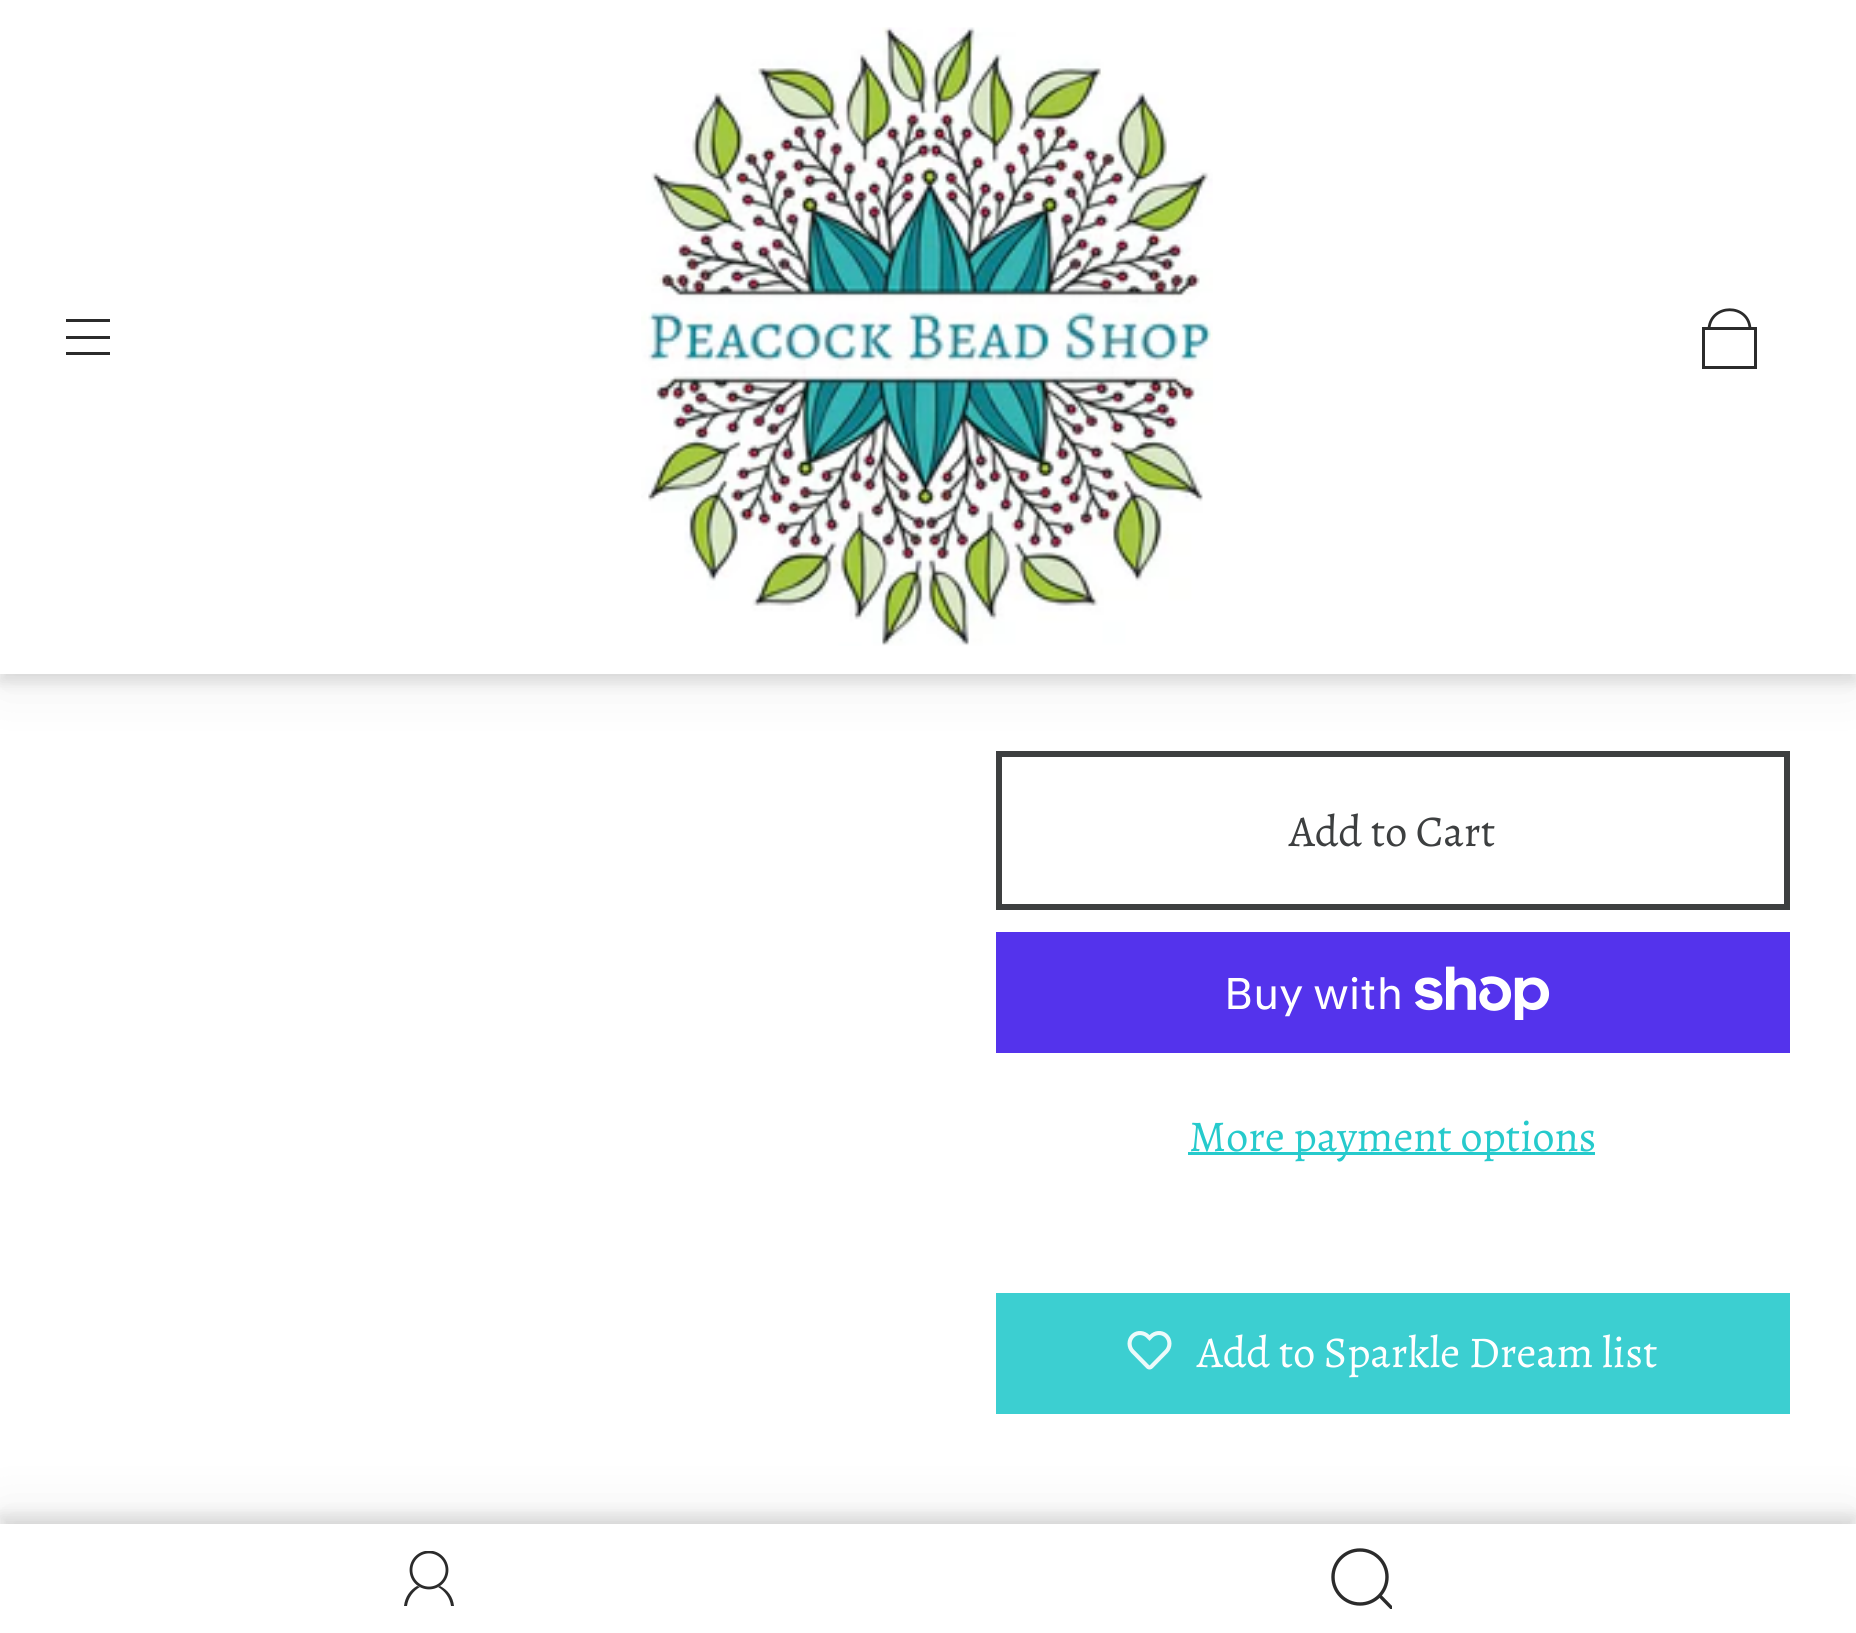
import math
import cairo


def round_path(ctx, x, y, w, h, r):
	ctx.new_sub_path()
	for i, (u, v) in enumerate([(x + w - r, y + h - r), (x + r, y + h - r), (x + r, y + r), (x + w - r, y + r)]):
		ctx.arc(u, v, r, i * math.pi / 2, (i + 1) * math.pi / 2)
	ctx.close_path()

def blur_box(ctx, x, y, w, h, r, blur, alpha):
	ctx.push_group_with_content(cairo.CONTENT_ALPHA)
	ctx.set_operator(cairo.OPERATOR_SOURCE)
	for i in range(15, -16, -2):
		e = blur * i / 6
		if min(w, h) + 2 * e > 0:
			ctx.set_source_rgba(0, 0, 0, alpha * math.erfc((i - 1) / 8.5) / 2)
			round_path(ctx, x - e, y - e, w + 2 * e, h + 2 * e, max(0, min(r + e + blur * .6, min(w, h) / 2 + e)))
			ctx.fill()
	ctx.mask(ctx.pop_group())

def paste(ctx, path, x, y, w, h):
	ctx.save()
	ctx.set_source_surface(cairo.ImageSurface.create_from_png(path), x, y)
	ctx.rectangle(x, y, w, h)
	ctx.fill()
	ctx.restore()

def draw(ctx):
	ctx.set_source_rgb(1, 1, 1)
	ctx.paint()
	ctx.rectangle(999, 754, 788, 153)
	ctx.set_source_rgb(0.239, 0.247, 0.251)
	ctx.set_line_width(6)
	ctx.stroke()
	ctx.set_source_rgb(0, 0, 0)
	blur_box(ctx, 0, 17, 1856, 673, 0, 27.5, 0.06)
	blur_box(ctx, 0, 8, 1856, 674, 0, 7, 0.12)
	ctx.set_source_rgb(1, 1, 1)
	ctx.rectangle(0, 0, 1856, 674)
	ctx.fill()
	ctx.set_source_rgb(0.169, 0.169, 0.169)
	ctx.rectangle(66, 319, 44, 3)
	ctx.rectangle(66, 336, 44, 3)
	ctx.rectangle(66, 352, 44, 3)
	ctx.fill()
	paste(ctx, 'media/1.png', 641, 27, 572, 619)
	ctx.new_path()
	ctx.move_to(1709, 328.5)
	ctx.curve_to(1711, 303.5, 1748.5, 303.5, 1750, 328.5)
	ctx.close_path()
	ctx.set_line_width(2.8)
	ctx.stroke()
	ctx.rectangle(1703.5, 328.5, 52, 39)
	ctx.set_line_width(3)
	ctx.stroke()
	ctx.select_font_face('Alegreya')
	ctx.set_font_size(44)
	ctx.set_source_rgb(0.239, 0.247, 0.251)
	ctx.move_to(1289, 846)
	ctx.show_text('Add to Cart')
	ctx.set_source_rgb(0.329, 0.2, 0.922)
	ctx.rectangle(996, 932, 794, 121)
	ctx.fill()
	ctx.select_font_face('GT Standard')
	ctx.set_source_rgb(1, 1, 1)
	ctx.move_to(1224, 1009)
	ctx.show_text('Buy with')
	paste(ctx, 'media/2.png', 1415, 966, 135, 54)
	ctx.set_source_rgb(0.149, 0.792, 0.8)
	ctx.rectangle(1188, 1152, 407, 3)
	ctx.fill()
	ctx.select_font_face('Alegreya')
	ctx.move_to(1189, 1151)
	ctx.show_text('More payment options')
	ctx.set_source_rgb(0.235, 0.812, 0.82)
	ctx.rectangle(996, 1293, 794, 121)
	ctx.fill()
	paste(ctx, 'media/3.png', 1127, 1331, 45, 39)
	ctx.set_source_rgb(1, 1, 1)
	ctx.move_to(1197, 1367)
	ctx.show_text('Add to Sparkle Dream list')
	ctx.set_source_rgb(0, 0, 0)
	blur_box(ctx, 0, 1507, 1856, 110, 0, 27.5, 0.06)
	blur_box(ctx, 0, 1515, 1856, 110, 0, 7, 0.12)
	ctx.set_source_rgb(1, 1, 1)
	ctx.rectangle(0, 1524, 1856, 109)
	ctx.fill()
	ctx.set_source_rgb(0.169, 0.169, 0.169)
	ctx.set_fill_rule(cairo.FILL_RULE_EVEN_ODD)
	ctx.new_path()
	ctx.move_to(404, 1606)
	ctx.curve_to(405, 1597, 410, 1590, 417, 1586)
	ctx.line_to(420, 1587)
	ctx.curve_to(413, 1591, 408, 1598, 407, 1606)
	ctx.close_path()
	ctx.move_to(454, 1606)
	ctx.curve_to(453, 1597, 448, 1590, 440, 1586)
	ctx.line_to(438, 1587)
	ctx.curve_to(445, 1591, 450, 1598, 451, 1606)
	ctx.close_path()
	ctx.fill()
	ctx.save()
	ctx.set_fill_rule(cairo.FILL_RULE_WINDING)
	ctx.rectangle(404, 1551, 53, 55)
	ctx.clip()
	ctx.arc(429, 1570, 18, 0, 2 * math.pi)
	ctx.set_line_width(2.8)
	ctx.stroke()
	ctx.restore()
	ctx.arc(1360, 1577, 27, 0, 2 * math.pi)
	ctx.set_line_width(3.4)
	ctx.stroke()
	ctx.save()
	ctx.set_fill_rule(cairo.FILL_RULE_WINDING)
	ctx.rectangle(1331, 1548, 61, 61)
	ctx.clip()
	ctx.new_path()
	ctx.move_to(1379, 1595)
	ctx.line_to(1398, 1614.5)
	ctx.stroke()
	ctx.restore()


surface = cairo.ImageSurface(cairo.FORMAT_RGB24, 1856, 1633)
ctx = cairo.Context(surface)
options = cairo.FontOptions()
options.set_hint_metrics(cairo.HINT_METRICS_OFF)
options.set_hint_style(cairo.HINT_STYLE_NONE)
ctx.set_font_options(options)
ctx.set_miter_limit(4)
draw(ctx)
surface.write_to_png('image.png')
